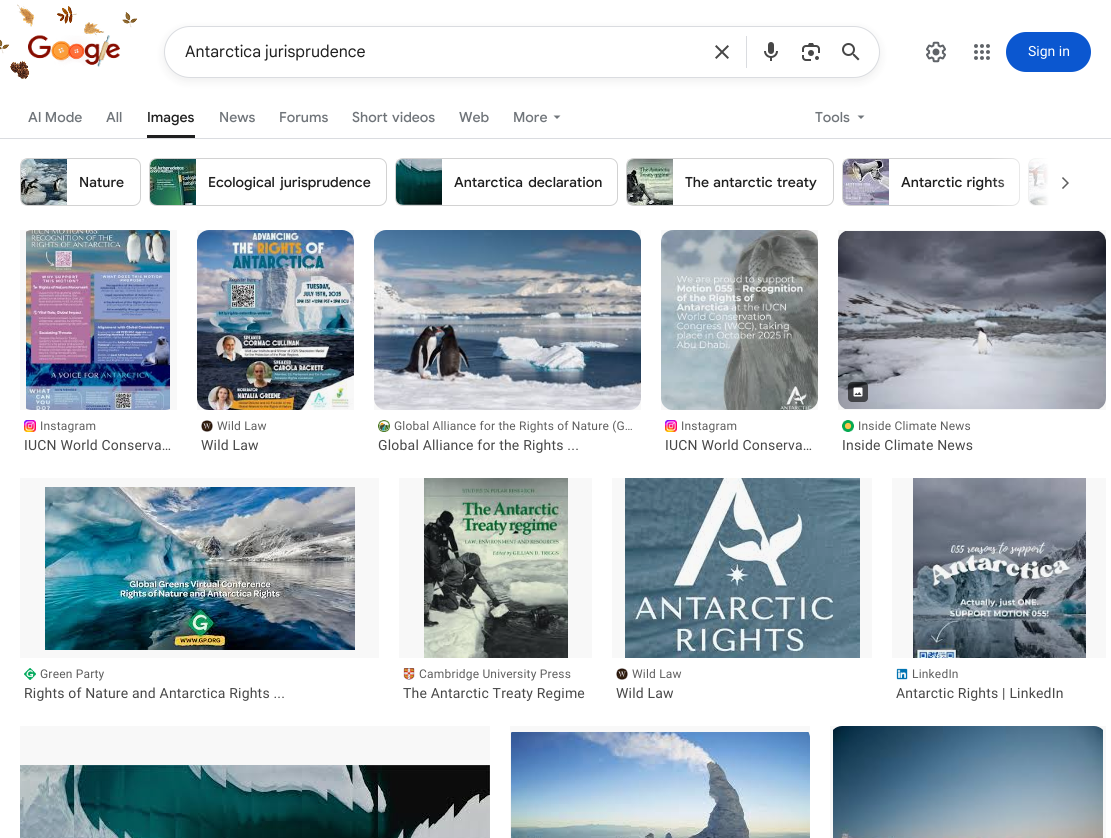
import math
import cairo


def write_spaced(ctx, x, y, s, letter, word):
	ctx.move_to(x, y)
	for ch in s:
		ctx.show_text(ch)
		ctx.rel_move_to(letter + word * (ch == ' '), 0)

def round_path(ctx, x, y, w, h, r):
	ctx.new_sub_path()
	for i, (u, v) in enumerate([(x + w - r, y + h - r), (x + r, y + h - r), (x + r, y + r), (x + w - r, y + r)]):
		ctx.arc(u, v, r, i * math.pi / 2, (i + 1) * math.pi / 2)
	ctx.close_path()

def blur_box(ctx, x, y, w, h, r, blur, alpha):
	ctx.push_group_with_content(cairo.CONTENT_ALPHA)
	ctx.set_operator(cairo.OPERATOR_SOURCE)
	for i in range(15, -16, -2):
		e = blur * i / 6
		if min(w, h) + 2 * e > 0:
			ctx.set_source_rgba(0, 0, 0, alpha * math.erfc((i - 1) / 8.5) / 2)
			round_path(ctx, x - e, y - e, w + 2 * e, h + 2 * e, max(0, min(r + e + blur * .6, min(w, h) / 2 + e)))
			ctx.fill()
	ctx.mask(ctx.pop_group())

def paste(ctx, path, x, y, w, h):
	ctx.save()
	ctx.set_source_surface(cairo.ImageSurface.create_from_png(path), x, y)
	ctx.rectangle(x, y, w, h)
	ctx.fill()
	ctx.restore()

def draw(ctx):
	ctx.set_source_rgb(1, 1, 1)
	ctx.paint()
	paste(ctx, 'media/1.png', 0, 4, 138, 75)
	paste(ctx, 'media/2.png', 28, 35, 92, 32)
	ctx.set_source_rgb(0.122, 0.122, 0.122)
	blur_box(ctx, 164, 29, 716, 52, 26, 5, 0.08)
	ctx.set_source_rgb(1, 1, 1)
	round_path(ctx, 164.5, 26.5, 715, 51, 25.5)
	ctx.fill_preserve()
	ctx.set_source_rgb(0.855, 0.863, 0.878)
	ctx.set_line_width(1)
	ctx.stroke()
	ctx.select_font_face('Google Sans')
	ctx.set_font_size(16)
	ctx.set_source_rgb(0.122, 0.122, 0.122)
	ctx.move_to(185, 57)
	ctx.show_text('Antarctica jurisprudence')
	paste(ctx, 'media/3.png', 715, 45, 14, 14)
	ctx.set_source_rgb(0.855, 0.863, 0.878)
	ctx.rectangle(746, 36, 1, 32)
	ctx.fill()
	paste(ctx, 'media/4.png', 764, 42, 14, 19)
	paste(ctx, 'media/5.png', 802, 43, 18, 18)
	paste(ctx, 'media/6.png', 842, 43, 18, 18)
	paste(ctx, 'media/7.png', 926, 41, 20, 22)
	paste(ctx, 'media/8.png', 974, 44, 16, 16)
	ctx.set_source_rgb(0.043, 0.341, 0.816)
	round_path(ctx, 1006, 32, 85, 40, 20)
	ctx.fill()
	ctx.select_font_face('Roboto')
	ctx.set_font_size(14)
	ctx.set_source_rgb(1, 1, 1)
	ctx.move_to(1028, 56)
	ctx.show_text('Sign in')
	ctx.select_font_face('Google Sans Medium')
	ctx.set_source_rgb(0.439, 0.459, 0.478)
	ctx.move_to(28, 122)
	ctx.show_text('AI Mode')
	ctx.move_to(106, 122)
	ctx.show_text('All')
	ctx.set_source_rgb(0.122, 0.122, 0.122)
	ctx.rectangle(147, 135, 48, 3)
	ctx.fill()
	ctx.move_to(147, 122)
	ctx.show_text('Images')
	ctx.set_source_rgb(0.439, 0.459, 0.478)
	ctx.move_to(219, 122)
	ctx.show_text('News')
	ctx.move_to(279, 122)
	ctx.show_text('Forums')
	write_spaced(ctx, 352, 122, 'Short videos', 0, 1)
	ctx.move_to(459, 122)
	ctx.show_text('Web')
	ctx.move_to(513, 122)
	ctx.show_text('More')
	ctx.new_path()
	ctx.move_to(553.5, 115.5)
	ctx.line_to(557, 119)
	ctx.line_to(560.5, 115.5)
	ctx.close_path()
	ctx.fill()
	ctx.move_to(815, 122)
	ctx.show_text('Tools')
	ctx.new_path()
	ctx.move_to(857.5, 115.5)
	ctx.line_to(861, 119)
	ctx.line_to(864.5, 115.5)
	ctx.close_path()
	ctx.fill()
	ctx.set_source_rgb(0.855, 0.863, 0.878)
	ctx.rectangle(0, 138, 1111, 1)
	ctx.fill()
	round_path(ctx, 20.5, 158.5, 120, 47, 7.5)
	ctx.set_source_rgb(0.824, 0.824, 0.824)
	ctx.stroke()
	paste(ctx, 'media/9.png', 21, 159, 46, 46)
	ctx.set_source_rgba(0, 0, 0, 0.03)
	ctx.rectangle(21, 159, 46, 46)
	ctx.fill()
	ctx.set_source_rgb(0.122, 0.122, 0.122)
	ctx.move_to(79, 187)
	ctx.show_text('Nature')
	round_path(ctx, 149.5, 158.5, 237, 47, 7.5)
	ctx.set_source_rgb(0.824, 0.824, 0.824)
	ctx.stroke()
	paste(ctx, 'media/10.png', 150, 159, 46, 46)
	ctx.set_source_rgba(0, 0, 0, 0.03)
	ctx.rectangle(150, 159, 46, 46)
	ctx.fill()
	ctx.set_source_rgb(0.122, 0.122, 0.122)
	write_spaced(ctx, 208, 187, 'Ecological jurisprudence', 0, 2)
	round_path(ctx, 395.5, 158.5, 222, 47, 7.5)
	ctx.set_source_rgb(0.824, 0.824, 0.824)
	ctx.stroke()
	paste(ctx, 'media/11.png', 396, 159, 46, 46)
	ctx.set_source_rgba(0, 0, 0, 0.03)
	ctx.rectangle(396, 159, 46, 46)
	ctx.fill()
	ctx.set_source_rgb(0.122, 0.122, 0.122)
	write_spaced(ctx, 454, 187, 'Antarctica declaration', 0, 2)
	round_path(ctx, 626.5, 158.5, 207, 47, 7.5)
	ctx.set_source_rgb(0.824, 0.824, 0.824)
	ctx.stroke()
	paste(ctx, 'media/12.png', 627, 159, 46, 46)
	ctx.set_source_rgba(0, 0, 0, 0.03)
	ctx.rectangle(627, 159, 46, 46)
	ctx.fill()
	ctx.set_source_rgb(0.122, 0.122, 0.122)
	write_spaced(ctx, 685, 187, 'The antarctic treaty', 0, 1)
	round_path(ctx, 842.5, 158.5, 177, 47, 7.5)
	ctx.set_source_rgb(0.824, 0.824, 0.824)
	ctx.stroke()
	paste(ctx, 'media/13.png', 843, 159, 46, 46)
	ctx.set_source_rgba(0, 0, 0, 0.03)
	ctx.rectangle(843, 159, 46, 46)
	ctx.fill()
	ctx.set_source_rgb(0.122, 0.122, 0.122)
	write_spaced(ctx, 901, 187, 'Antarctic rights', 0, 1)
	ctx.save()
	ctx.rectangle(20, 158, 1053, 50)
	ctx.clip()
	round_path(ctx, 1028.5, 158.5, 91, 47, 7.5)
	ctx.set_source_rgb(0.824, 0.824, 0.824)
	ctx.stroke()
	ctx.restore()
	paste(ctx, 'media/14.png', 1029, 159, 20, 46)
	ctx.set_source_rgba(0, 0, 0, 0.03)
	ctx.rectangle(1029, 159, 20, 46)
	ctx.fill()
	gradient = cairo.LinearGradient(989, 183, 1089, 183)
	gradient.add_color_stop_rgba(0, 1, 1, 1, 0)
	gradient.add_color_stop_rgba(0.6, 1, 1, 1, 1)
	gradient.add_color_stop_rgba(1, 1, 1, 1, 1)
	ctx.set_source(gradient)
	ctx.rectangle(990, 158, 83, 48)
	ctx.fill()
	paste(ctx, 'media/15.png', 1062, 177, 7, 12)
	paste(ctx, 'media/16.png', 26, 230, 144, 180)
	ctx.set_source_rgba(0, 0, 0, 0.03)
	ctx.rectangle(20, 230, 157, 180)
	ctx.fill()
	paste(ctx, 'media/17.png', 24, 420, 12, 12)
	ctx.select_font_face('Roboto')
	ctx.set_font_size(12)
	ctx.set_source_rgb(0.369, 0.369, 0.369)
	write_spaced(ctx, 40, 430, 'Instagram', 0.2, 0)
	ctx.set_font_size(14)
	ctx.set_source_rgb(0.278, 0.278, 0.278)
	write_spaced(ctx, 24, 450, 'IUCN World Conserva…', 0.2, 0)
	paste(ctx, 'media/18.png', 197, 230, 157, 180)
	ctx.set_source_rgba(0, 0, 0, 0.03)
	ctx.rectangle(197, 230, 157, 180)
	ctx.fill()
	paste(ctx, 'media/19.png', 201, 420, 12, 12)
	ctx.set_font_size(12)
	ctx.set_source_rgb(0.369, 0.369, 0.369)
	write_spaced(ctx, 217, 430, 'Wild Law', 0.2, 0)
	ctx.set_font_size(14)
	ctx.set_source_rgb(0.278, 0.278, 0.278)
	write_spaced(ctx, 201, 450, 'Wild Law', 0.2, 0)
	paste(ctx, 'media/20.png', 374, 230, 267, 180)
	ctx.set_source_rgba(0, 0, 0, 0.03)
	ctx.rectangle(374, 230, 267, 180)
	ctx.fill()
	paste(ctx, 'media/21.png', 378, 420, 12, 12)
	ctx.set_font_size(12)
	ctx.set_source_rgb(0.369, 0.369, 0.369)
	write_spaced(ctx, 394, 430, 'Global Alliance for the Rights of Nature (G…', 0.2, 0)
	ctx.set_font_size(14)
	ctx.set_source_rgb(0.278, 0.278, 0.278)
	write_spaced(ctx, 378, 450, 'Global Alliance for the Rights ...', 0.2, 0)
	paste(ctx, 'media/22.png', 661, 230, 157, 180)
	ctx.set_source_rgba(0, 0, 0, 0.03)
	ctx.rectangle(661, 230, 157, 180)
	ctx.fill()
	paste(ctx, 'media/23.png', 665, 420, 12, 12)
	ctx.set_font_size(12)
	ctx.set_source_rgb(0.369, 0.369, 0.369)
	write_spaced(ctx, 681, 430, 'Instagram', 0.2, 0)
	ctx.set_font_size(14)
	ctx.set_source_rgb(0.278, 0.278, 0.278)
	write_spaced(ctx, 665, 450, 'IUCN World Conserva…', 0.2, 0)
	paste(ctx, 'media/24.png', 838, 231, 268, 178)
	ctx.set_source_rgba(0, 0, 0, 0.03)
	ctx.rectangle(838, 230, 268, 180)
	ctx.fill()
	ctx.set_source_rgba(0, 0, 0, 0.6)
	round_path(ctx, 848, 382, 20, 20, 4)
	ctx.fill()
	paste(ctx, 'media/25.png', 853, 387, 10, 10)
	paste(ctx, 'media/26.png', 842, 420, 12, 12)
	ctx.set_font_size(12)
	ctx.set_source_rgb(0.369, 0.369, 0.369)
	write_spaced(ctx, 858, 430, 'Inside Climate News', 0.2, 0)
	ctx.set_font_size(14)
	ctx.set_source_rgb(0.278, 0.278, 0.278)
	write_spaced(ctx, 842, 450, 'Inside Climate News', 0.2, 0)
	paste(ctx, 'media/27.png', 45, 487, 310, 163)
	ctx.set_source_rgba(0, 0, 0, 0.03)
	ctx.rectangle(20, 478, 359, 180)
	ctx.fill()
	paste(ctx, 'media/28.png', 24, 668, 12, 12)
	ctx.set_font_size(12)
	ctx.set_source_rgb(0.369, 0.369, 0.369)
	write_spaced(ctx, 40, 678, 'Green Party', 0.2, 0)
	ctx.set_font_size(14)
	ctx.set_source_rgb(0.278, 0.278, 0.278)
	write_spaced(ctx, 24, 698, 'Rights of Nature and Antarctica Rights ...', 0.2, 0)
	paste(ctx, 'media/29.png', 424, 478, 144, 180)
	ctx.set_source_rgba(0, 0, 0, 0.03)
	ctx.rectangle(399, 478, 193, 180)
	ctx.fill()
	paste(ctx, 'media/30.png', 403, 668, 12, 12)
	ctx.set_font_size(12)
	ctx.set_source_rgb(0.369, 0.369, 0.369)
	write_spaced(ctx, 419, 678, 'Cambridge University Press', 0.2, 0)
	ctx.set_font_size(14)
	ctx.set_source_rgb(0.278, 0.278, 0.278)
	write_spaced(ctx, 403, 698, 'The Antarctic Treaty Regime', 0.2, 0)
	paste(ctx, 'media/31.png', 625, 478, 235, 180)
	ctx.set_source_rgba(0, 0, 0, 0.03)
	ctx.rectangle(612, 478, 260, 180)
	ctx.fill()
	paste(ctx, 'media/19.png', 616, 668, 12, 12)
	ctx.set_font_size(12)
	ctx.set_source_rgb(0.369, 0.369, 0.369)
	write_spaced(ctx, 632, 678, 'Wild Law', 0.2, 0)
	ctx.set_font_size(14)
	ctx.set_source_rgb(0.278, 0.278, 0.278)
	write_spaced(ctx, 616, 698, 'Wild Law', 0.2, 0)
	paste(ctx, 'media/32.png', 913, 478, 173, 180)
	ctx.set_source_rgba(0, 0, 0, 0.03)
	ctx.rectangle(892, 478, 214, 180)
	ctx.fill()
	paste(ctx, 'media/33.png', 896, 668, 12, 12)
	ctx.set_font_size(12)
	ctx.set_source_rgb(0.369, 0.369, 0.369)
	write_spaced(ctx, 912, 678, 'LinkedIn', 0.2, 0)
	ctx.set_font_size(14)
	ctx.set_source_rgb(0.278, 0.278, 0.278)
	write_spaced(ctx, 896, 698, 'Antarctic Rights | LinkedIn', 0.2, 0)
	paste(ctx, 'media/34.png', 20, 765, 470, 73)
	ctx.set_source_rgba(0, 0, 0, 0.03)
	ctx.rectangle(20, 726, 470, 112)
	ctx.fill()
	paste(ctx, 'media/35.png', 511, 732, 299, 106)
	ctx.rectangle(510, 726, 300, 112)
	ctx.fill()
	paste(ctx, 'media/36.png', 833, 726, 270, 112)
	ctx.rectangle(830, 726, 276, 112)
	ctx.fill()


surface = cairo.ImageSurface(cairo.FORMAT_RGB24, 1111, 838)
ctx = cairo.Context(surface)
options = cairo.FontOptions()
options.set_hint_metrics(cairo.HINT_METRICS_OFF)
options.set_hint_style(cairo.HINT_STYLE_NONE)
ctx.set_font_options(options)
ctx.set_miter_limit(4)
draw(ctx)
surface.write_to_png('image.png')
